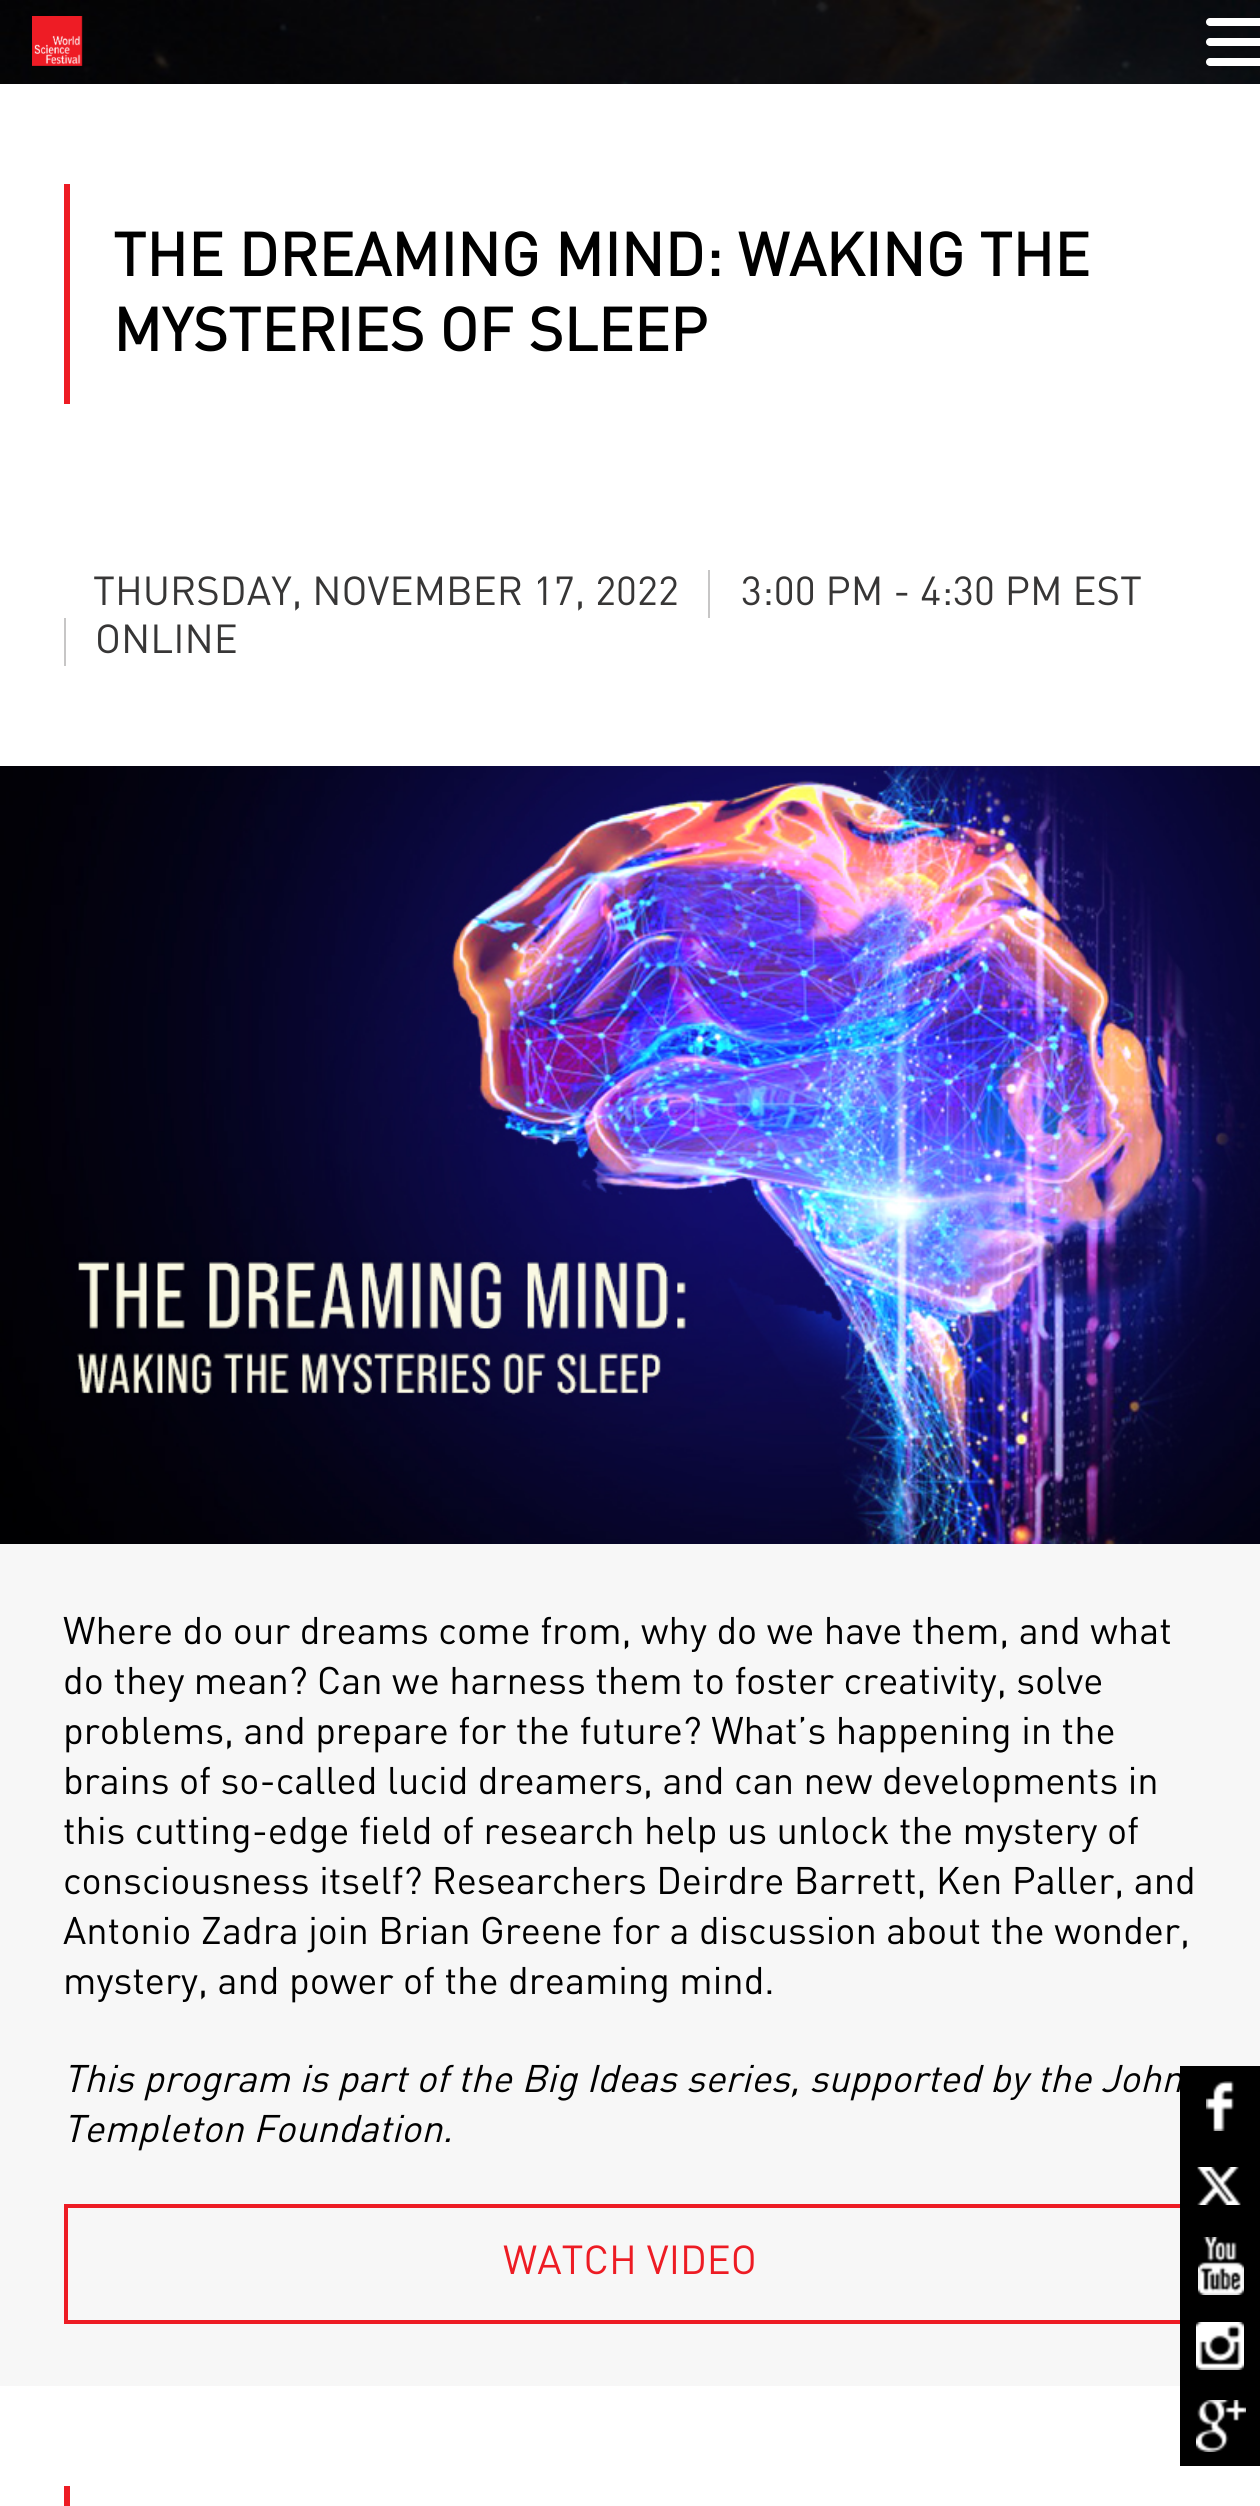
import math
import cairo


def round_path(ctx, x, y, w, h, r):
	ctx.new_sub_path()
	for i, (u, v) in enumerate([(x + w - r, y + h - r), (x + r, y + h - r), (x + r, y + r), (x + w - r, y + r)]):
		ctx.arc(u, v, r, i * math.pi / 2, (i + 1) * math.pi / 2)
	ctx.close_path()

def paste(ctx, path, x, y, w, h):
	ctx.save()
	ctx.set_source_surface(cairo.ImageSurface.create_from_png(path), x, y)
	ctx.rectangle(x, y, w, h)
	ctx.fill()
	ctx.restore()

def draw(ctx):
	ctx.set_source_rgb(1, 1, 1)
	ctx.paint()
	paste(ctx, 'media/1.png', 0, 0, 1260, 84)
	paste(ctx, 'media/2.png', 32, 16, 51, 50)
	ctx.set_source_rgb(1, 1, 1)
	round_path(ctx, 1206, 18, 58, 8, 4)
	ctx.fill()
	round_path(ctx, 1206, 38, 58, 8, 4)
	ctx.fill()
	round_path(ctx, 1206, 58, 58, 8, 4)
	ctx.fill()
	ctx.set_source_rgb(0.929, 0.11, 0.141)
	ctx.rectangle(64, 184, 6, 220)
	ctx.fill()
	ctx.select_font_face('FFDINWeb', cairo.FONT_SLANT_NORMAL, cairo.FONT_WEIGHT_BOLD)
	ctx.set_font_size(60)
	ctx.set_source_rgb(0, 0, 0)
	ctx.move_to(113, 276)
	ctx.show_text('THE DREAMING MIND: WAKING THE')
	ctx.move_to(113, 351)
	ctx.show_text('MYSTERIES OF SLEEP')
	ctx.select_font_face('FFDINWeb')
	ctx.set_font_size(40)
	ctx.set_source_rgb(0.216, 0.212, 0.212)
	ctx.move_to(93, 605)
	ctx.show_text('THURSDAY, NOVEMBER 17, 2022')
	ctx.set_source_rgb(0.78, 0.776, 0.776)
	ctx.rectangle(708, 570, 2, 48)
	ctx.fill()
	ctx.set_source_rgb(0.216, 0.212, 0.212)
	ctx.move_to(741, 605)
	ctx.show_text('3:00 PM - 4:30 PM EST')
	ctx.set_source_rgb(0.78, 0.776, 0.776)
	ctx.rectangle(64, 618, 2, 48)
	ctx.fill()
	ctx.set_source_rgb(0.216, 0.212, 0.212)
	ctx.move_to(95, 653)
	ctx.show_text('ONLINE')
	ctx.set_source_rgb(0.965, 0.965, 0.965)
	ctx.rectangle(0, 1544, 1260, 842)
	ctx.fill()
	paste(ctx, 'media/3.png', 0, 766, 1260, 778)
	ctx.set_font_size(38)
	ctx.set_source_rgb(0, 0, 0)
	for x, y, s in [
		(63, 1644, 'Where do our dreams come from, why do we have them, and what'),
		(63, 1694, 'do they mean? Can we harness them to foster creativity, solve'),
		(63, 1744, 'problems, and prepare for the future? What’s happening in the'),
		(63, 1794, 'brains of so-called lucid dreamers, and can new developments in'),
		(63, 1844, 'this cutting-edge field of research help us unlock the mystery of'),
		(63, 1894, 'consciousness itself? Researchers Deirdre Barrett, Ken Paller, and'),
		(63, 1944, 'Antonio Zadra join Brian Greene for a discussion about the wonder,'),
		(63, 1994, 'mystery, and power of the dreaming mind.'),
	]:
		ctx.move_to(x, y)
		ctx.show_text(s)
	ctx.select_font_face('FFDINWeb', cairo.FONT_SLANT_ITALIC)
	ctx.move_to(63, 2092)
	ctx.show_text('This program is part of the Big Ideas series, supported by the John')
	ctx.move_to(63, 2142)
	ctx.show_text('Templeton Foundation.')
	ctx.rectangle(66, 2206, 1130, 116)
	ctx.set_source_rgb(0.929, 0.11, 0.141)
	ctx.set_line_width(4)
	ctx.stroke()
	ctx.select_font_face('FFDINWeb')
	ctx.set_font_size(40)
	ctx.move_to(503, 2274)
	ctx.show_text('WATCH VIDEO')
	ctx.rectangle(64, 2486, 6, 20)
	ctx.fill()
	ctx.set_source_rgb(0, 0, 0)
	ctx.rectangle(1180, 2066, 80, 400)
	ctx.fill()
	paste(ctx, 'media/4.png', 1206, 2081, 28, 50)
	paste(ctx, 'media/5.png', 1197, 2167, 44, 38)
	paste(ctx, 'media/6.png', 1198, 2237, 46, 58)
	paste(ctx, 'media/7.png', 1196, 2322, 48, 48)
	paste(ctx, 'media/8.png', 1196, 2400, 50, 52)


surface = cairo.ImageSurface(cairo.FORMAT_RGB24, 1260, 2506)
ctx = cairo.Context(surface)
options = cairo.FontOptions()
options.set_hint_metrics(cairo.HINT_METRICS_OFF)
options.set_hint_style(cairo.HINT_STYLE_NONE)
ctx.set_font_options(options)
ctx.set_miter_limit(4)
draw(ctx)
surface.write_to_png('image.png')
